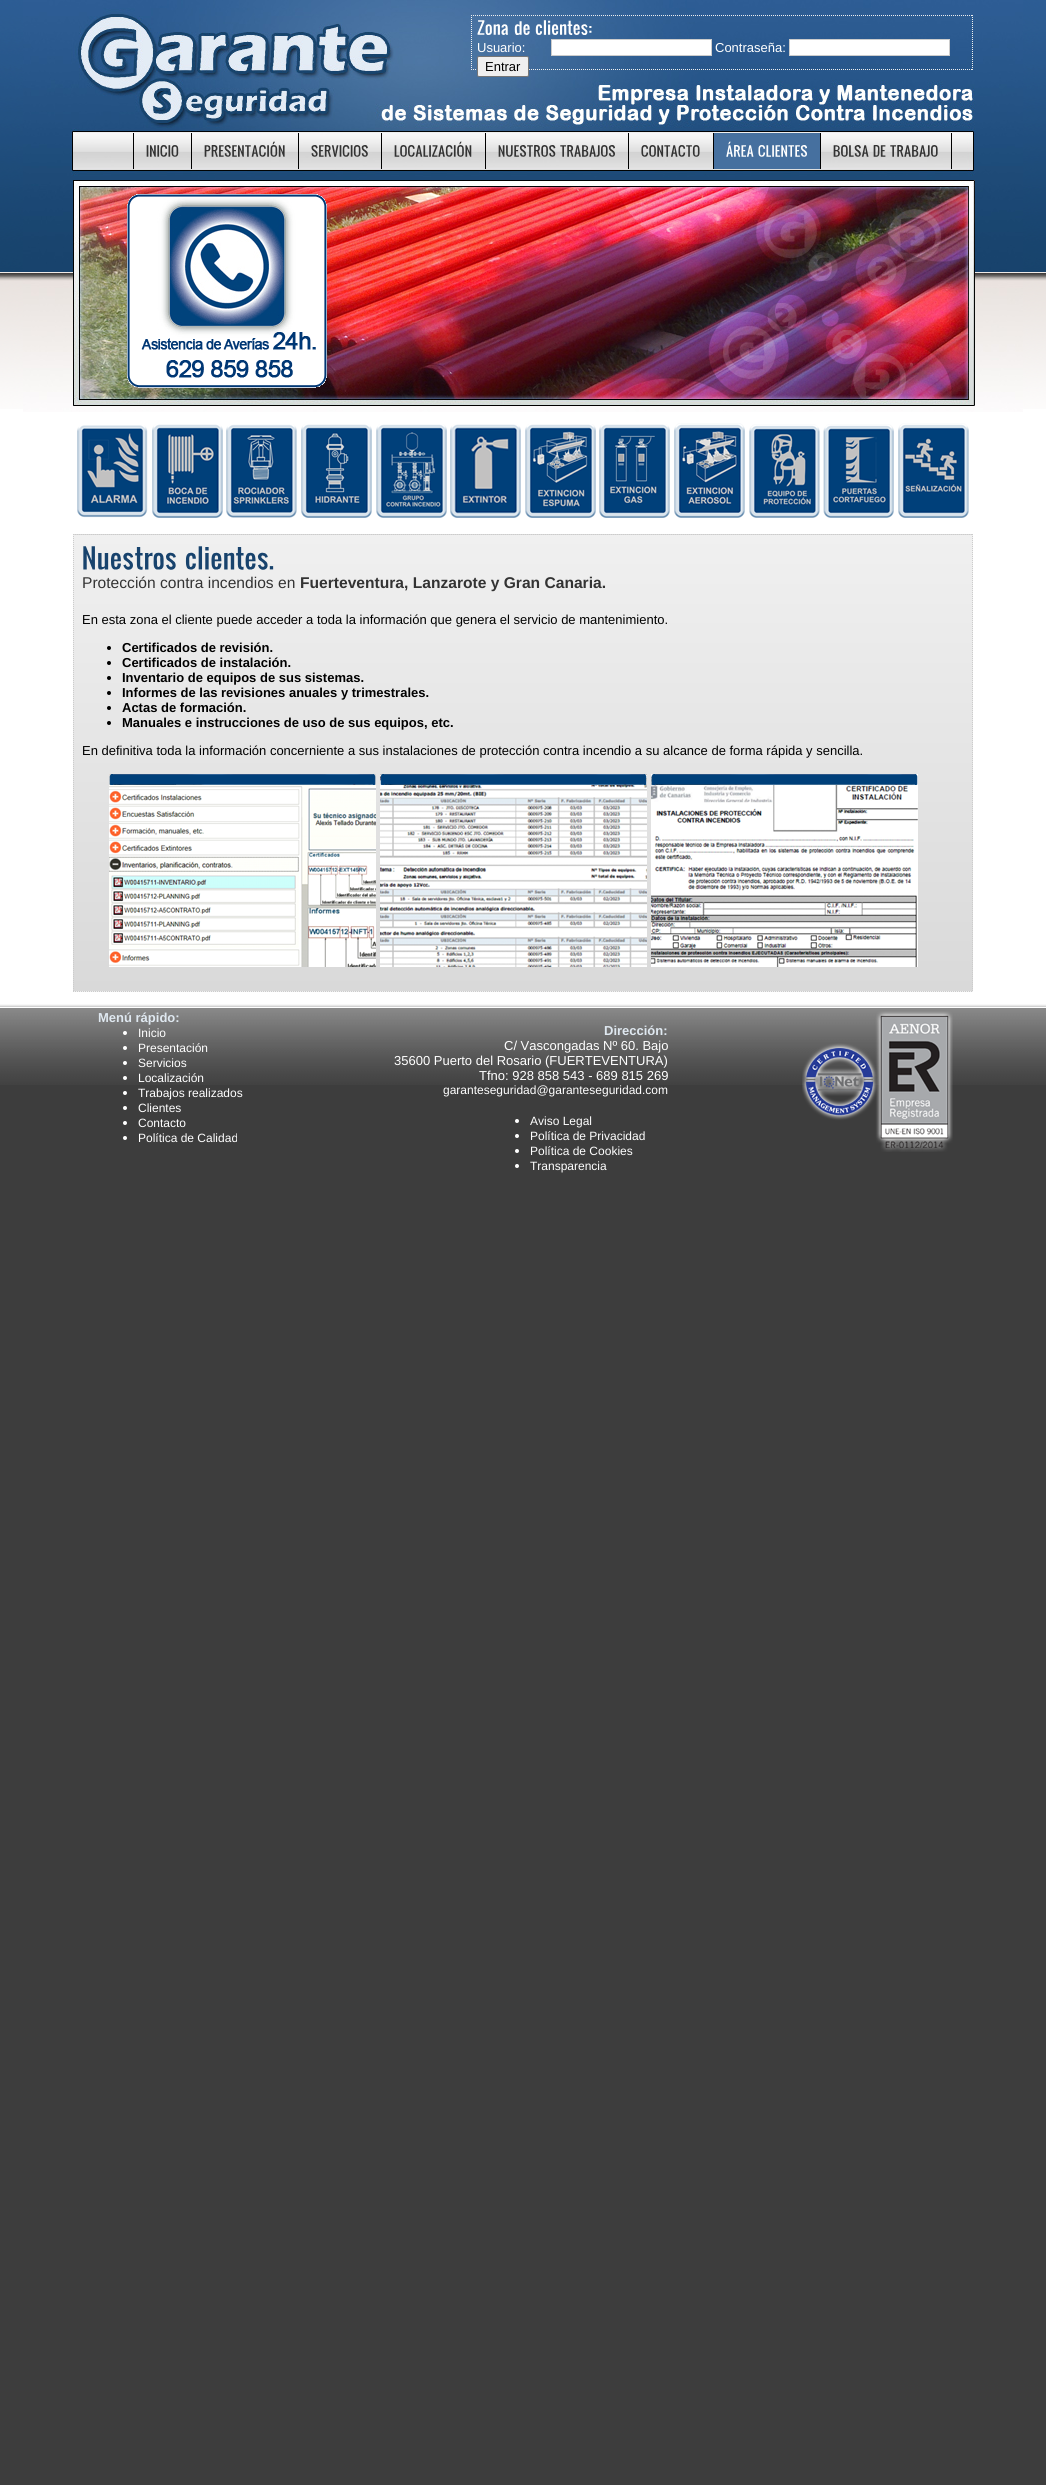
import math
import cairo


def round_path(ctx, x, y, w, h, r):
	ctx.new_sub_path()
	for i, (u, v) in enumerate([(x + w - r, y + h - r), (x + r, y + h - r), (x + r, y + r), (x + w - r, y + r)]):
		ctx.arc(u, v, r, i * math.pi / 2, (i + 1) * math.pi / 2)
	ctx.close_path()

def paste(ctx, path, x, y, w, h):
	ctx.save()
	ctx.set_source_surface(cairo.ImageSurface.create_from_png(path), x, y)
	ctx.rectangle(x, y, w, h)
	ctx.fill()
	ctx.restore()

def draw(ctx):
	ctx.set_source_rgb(0.239, 0.239, 0.239)
	ctx.paint()
	ctx.set_source_rgb(1, 1, 1)
	ctx.rectangle(0, 409, 1046, 591)
	ctx.fill()
	paste(ctx, 'media/1.png', 0, 0, 1046, 409)
	paste(ctx, 'media/2.png', 23, 0, 1000, 412)
	ctx.new_path()
	ctx.move_to(471, 15.5)
	ctx.line_to(973, 15.5)
	ctx.set_source_rgb(0.937, 0.937, 0.937)
	ctx.set_line_width(1)
	ctx.set_dash([1, 1])
	ctx.stroke()
	ctx.new_path()
	ctx.move_to(972.5, 15)
	ctx.line_to(972.5, 70)
	ctx.stroke()
	ctx.new_path()
	ctx.move_to(471, 69.5)
	ctx.line_to(973, 69.5)
	ctx.stroke()
	ctx.new_path()
	ctx.move_to(471.5, 15)
	ctx.line_to(471.5, 70)
	ctx.stroke()
	paste(ctx, 'media/3.png', 477, 20, 31, 15)
	paste(ctx, 'media/4.png', 514, 21, 16, 14)
	paste(ctx, 'media/5.png', 535, 20, 57, 15)
	ctx.select_font_face('Liberation Sans')
	ctx.set_font_size(13)
	ctx.set_source_rgb(1, 1, 1)
	ctx.move_to(477, 52)
	ctx.show_text('Usuario:')
	ctx.rectangle(551.5, 39.5, 160, 16)
	ctx.fill_preserve()
	ctx.set_source_rgb(0.8, 0.8, 0.8)
	ctx.set_dash([])
	ctx.stroke()
	ctx.set_source_rgb(1, 1, 1)
	ctx.move_to(715, 52)
	ctx.show_text('Contraseña:')
	ctx.rectangle(789.5, 39.5, 160, 16)
	ctx.fill_preserve()
	ctx.set_source_rgb(0.8, 0.8, 0.8)
	ctx.stroke()
	ctx.set_source_rgb(0.937, 0.937, 0.937)
	round_path(ctx, 477.5, 56.5, 51, 20, 1.5)
	ctx.fill_preserve()
	ctx.set_source_rgb(0.463, 0.463, 0.463)
	ctx.stroke()
	ctx.set_source_rgb(0, 0, 0)
	ctx.move_to(485, 71)
	ctx.show_text('Entrar')
	ctx.rectangle(133, 133, 1, 36)
	ctx.fill()
	ctx.rectangle(191, 133, 1, 36)
	ctx.fill()
	paste(ctx, 'media/6.png', 146, 145, 33, 12)
	ctx.rectangle(298, 133, 1, 36)
	ctx.fill()
	paste(ctx, 'media/7.png', 204, 141, 81, 16)
	ctx.rectangle(381, 133, 1, 36)
	ctx.fill()
	paste(ctx, 'media/8.png', 311, 145, 57, 12)
	ctx.rectangle(485, 133, 1, 36)
	ctx.fill()
	paste(ctx, 'media/9.png', 394, 141, 78, 16)
	ctx.rectangle(628, 133, 1, 36)
	ctx.fill()
	paste(ctx, 'media/10.png', 498, 145, 58, 12)
	paste(ctx, 'media/11.png', 560, 145, 55, 12)
	ctx.rectangle(713, 133, 1, 36)
	ctx.fill()
	paste(ctx, 'media/12.png', 641, 145, 59, 12)
	ctx.set_source_rgb(0.275, 0.439, 0.624)
	ctx.rectangle(714, 133, 106, 36)
	ctx.fill()
	ctx.set_source_rgb(0, 0, 0)
	ctx.rectangle(820, 133, 1, 36)
	ctx.fill()
	paste(ctx, 'media/13.png', 726, 141, 28, 16)
	paste(ctx, 'media/14.png', 758, 145, 49, 12)
	ctx.rectangle(951, 133, 1, 36)
	ctx.fill()
	paste(ctx, 'media/15.png', 833, 145, 36, 12)
	paste(ctx, 'media/16.png', 873, 145, 13, 12)
	paste(ctx, 'media/17.png', 890, 145, 48, 12)
	paste(ctx, 'media/18.png', 73, 180, 902, 226)
	paste(ctx, 'media/19.png', 127, 194, 200, 194)
	paste(ctx, 'media/20.png', 77, 425, 71, 93)
	paste(ctx, 'media/21.png', 152, 424, 71, 94)
	paste(ctx, 'media/22.png', 226, 424, 71, 94)
	paste(ctx, 'media/23.png', 301, 424, 71, 94)
	paste(ctx, 'media/24.png', 376, 424, 71, 94)
	paste(ctx, 'media/25.png', 450, 424, 71, 94)
	paste(ctx, 'media/26.png', 525, 424, 71, 94)
	paste(ctx, 'media/27.png', 599, 424, 71, 94)
	paste(ctx, 'media/28.png', 674, 423, 71, 95)
	paste(ctx, 'media/29.png', 749, 424, 71, 94)
	paste(ctx, 'media/30.png', 823, 424, 71, 94)
	paste(ctx, 'media/31.png', 898, 423, 71, 95)
	gradient = cairo.LinearGradient(74, 79, 74, 535)
	gradient.add_color_stop_rgba(0, 0.941, 0.941, 0.941, 1)
	gradient.add_color_stop_rgba(1, 0.851, 0.851, 0.851, 1)
	ctx.set_source(gradient)
	ctx.rectangle(73, 534, 900, 1)
	ctx.fill()
	gradient = cairo.LinearGradient(74, 535, 74, 991)
	gradient.add_color_stop_rgba(0, 0.941, 0.941, 0.941, 1)
	gradient.add_color_stop_rgba(1, 0.851, 0.851, 0.851, 1)
	ctx.set_source(gradient)
	ctx.rectangle(73, 535, 900, 456)
	ctx.fill()
	gradient = cairo.LinearGradient(74, 991, 74, 1447)
	gradient.add_color_stop_rgba(0, 0.941, 0.941, 0.941, 1)
	gradient.add_color_stop_rgba(1, 0.851, 0.851, 0.851, 1)
	ctx.set_source(gradient)
	ctx.rectangle(73, 991, 900, 1)
	ctx.fill()
	ctx.new_path()
	ctx.move_to(73, 534.5)
	ctx.line_to(973, 534.5)
	ctx.set_source_rgb(0.8, 0.8, 0.8)
	ctx.set_dash([1, 1])
	ctx.stroke()
	ctx.new_path()
	ctx.move_to(972.5, 534)
	ctx.line_to(972.5, 992)
	ctx.stroke()
	ctx.new_path()
	ctx.move_to(73, 991.5)
	ctx.line_to(973, 991.5)
	ctx.stroke()
	ctx.new_path()
	ctx.move_to(73.5, 534)
	ctx.line_to(73.5, 992)
	ctx.stroke()
	paste(ctx, 'media/32.png', 83, 546, 93, 24)
	paste(ctx, 'media/33.png', 185, 546, 89, 24)
	ctx.set_font_size(15.6)
	ctx.set_source_rgb(0.2, 0.2, 0.2)
	ctx.move_to(82, 588)
	ctx.show_text('Protección contra incendios en')
	ctx.select_font_face('Liberation Sans', cairo.FONT_SLANT_NORMAL, cairo.FONT_WEIGHT_BOLD)
	ctx.move_to(300, 588)
	ctx.show_text('Fuerteventura, Lanzarote y Gran Canaria.')
	ctx.select_font_face('Liberation Sans')
	ctx.set_font_size(13)
	ctx.set_source_rgb(0, 0, 0)
	ctx.move_to(82, 624)
	ctx.show_text('En esta zona el cliente puede acceder a toda la información que genera el servicio de mantenimiento.')
	ctx.new_path()
	ctx.arc(109, 648, 2, 0, 2 * math.pi)
	ctx.fill()
	ctx.select_font_face('Liberation Sans', cairo.FONT_SLANT_NORMAL, cairo.FONT_WEIGHT_BOLD)
	ctx.move_to(122, 652)
	ctx.show_text('Certificados de revisión.')
	ctx.new_path()
	ctx.arc(109, 663, 2, 0, 2 * math.pi)
	ctx.fill()
	ctx.move_to(122, 667)
	ctx.show_text('Certificados de instalación.')
	ctx.new_path()
	ctx.arc(109, 678, 2, 0, 2 * math.pi)
	ctx.fill()
	ctx.move_to(122, 682)
	ctx.show_text('Inventario de equipos de sus sistemas.')
	ctx.new_path()
	ctx.arc(109, 693, 2, 0, 2 * math.pi)
	ctx.fill()
	ctx.move_to(122, 697)
	ctx.show_text('Informes de las revisiones anuales y trimestrales.')
	ctx.new_path()
	ctx.arc(109, 708, 2, 0, 2 * math.pi)
	ctx.fill()
	ctx.move_to(122, 712)
	ctx.show_text('Actas de formación.')
	ctx.new_path()
	ctx.arc(109, 723, 2, 0, 2 * math.pi)
	ctx.fill()
	ctx.move_to(122, 727)
	ctx.show_text('Manuales e instrucciones de uso de sus equipos, etc.')
	ctx.select_font_face('Liberation Sans')
	ctx.move_to(82, 755)
	ctx.show_text('En definitiva toda la información concerniente a sus instalaciones de protección contra incendio a su alcance de forma rápida y sencilla.')
	paste(ctx, 'media/34.png', 109, 774, 267, 193)
	paste(ctx, 'media/35.png', 380, 774, 267, 193)
	paste(ctx, 'media/36.png', 651, 774, 267, 193)
	paste(ctx, 'media/37.png', 0, 1000, 1046, 85)
	ctx.select_font_face('Liberation Sans', cairo.FONT_SLANT_NORMAL, cairo.FONT_WEIGHT_BOLD)
	ctx.set_source_rgb(0.875, 0.91, 0.941)
	ctx.move_to(98, 1022)
	ctx.show_text('Menú rápido:')
	ctx.set_source_rgb(1, 1, 1)
	ctx.new_path()
	ctx.arc(125, 1033, 2, 0, 2 * math.pi)
	ctx.fill()
	ctx.select_font_face('Liberation Sans')
	ctx.set_font_size(12)
	ctx.move_to(138, 1037)
	ctx.show_text('Inicio')
	ctx.new_path()
	ctx.arc(125, 1048, 2, 0, 2 * math.pi)
	ctx.fill()
	ctx.move_to(138, 1052)
	ctx.show_text('Presentación')
	ctx.new_path()
	ctx.arc(125, 1063, 2, 0, 2 * math.pi)
	ctx.fill()
	ctx.move_to(138, 1067)
	ctx.show_text('Servicios')
	ctx.new_path()
	ctx.arc(125, 1078, 2, 0, 2 * math.pi)
	ctx.fill()
	ctx.move_to(138, 1082)
	ctx.show_text('Localización')
	ctx.new_path()
	ctx.arc(125, 1093, 2, 0, 2 * math.pi)
	ctx.fill()
	ctx.move_to(138, 1097)
	ctx.show_text('Trabajos realizados')
	ctx.new_path()
	ctx.arc(125, 1108, 2, 0, 2 * math.pi)
	ctx.fill()
	ctx.move_to(138, 1112)
	ctx.show_text('Clientes')
	ctx.new_path()
	ctx.arc(125, 1123, 2, 0, 2 * math.pi)
	ctx.fill()
	ctx.move_to(138, 1127)
	ctx.show_text('Contacto')
	ctx.new_path()
	ctx.arc(125, 1138, 2, 0, 2 * math.pi)
	ctx.fill()
	ctx.move_to(138, 1142)
	ctx.show_text('Política de Calidad')
	ctx.select_font_face('Liberation Sans', cairo.FONT_SLANT_NORMAL, cairo.FONT_WEIGHT_BOLD)
	ctx.set_font_size(13)
	ctx.set_source_rgb(0.875, 0.91, 0.941)
	ctx.move_to(604, 1035)
	ctx.show_text('Dirección:')
	ctx.select_font_face('Liberation Sans')
	ctx.set_source_rgb(1, 1, 1)
	for x, y, s in [
		(504, 1050, 'C/ Vascongadas Nº 60. Bajo'),
		(394, 1065, '35600 Puerto del Rosario (FUERTEVENTURA)'),
		(479, 1080, 'Tfno: 928 858 543 - 689 815 269'),
	]:
		ctx.move_to(x, y)
		ctx.show_text(s)
	ctx.set_font_size(12)
	ctx.move_to(443, 1094)
	ctx.show_text('garanteseguridad@garanteseguridad.com')
	ctx.new_path()
	ctx.arc(517, 1121, 2, 0, 2 * math.pi)
	ctx.fill()
	ctx.move_to(530, 1125)
	ctx.show_text('Aviso Legal')
	ctx.new_path()
	ctx.arc(517, 1136, 2, 0, 2 * math.pi)
	ctx.fill()
	ctx.move_to(530, 1140)
	ctx.show_text('Política de Privacidad')
	ctx.new_path()
	ctx.arc(517, 1151, 2, 0, 2 * math.pi)
	ctx.fill()
	ctx.move_to(530, 1155)
	ctx.show_text('Política de Cookies')
	ctx.new_path()
	ctx.arc(517, 1166, 2, 0, 2 * math.pi)
	ctx.fill()
	ctx.move_to(530, 1170)
	ctx.show_text('Transparencia')
	paste(ctx, 'media/38.png', 802, 1011, 151, 141)


surface = cairo.ImageSurface(cairo.FORMAT_RGB24, 1046, 2485)
ctx = cairo.Context(surface)
options = cairo.FontOptions()
options.set_hint_metrics(cairo.HINT_METRICS_OFF)
options.set_hint_style(cairo.HINT_STYLE_NONE)
ctx.set_font_options(options)
ctx.set_miter_limit(4)
draw(ctx)
surface.write_to_png('image.png')
